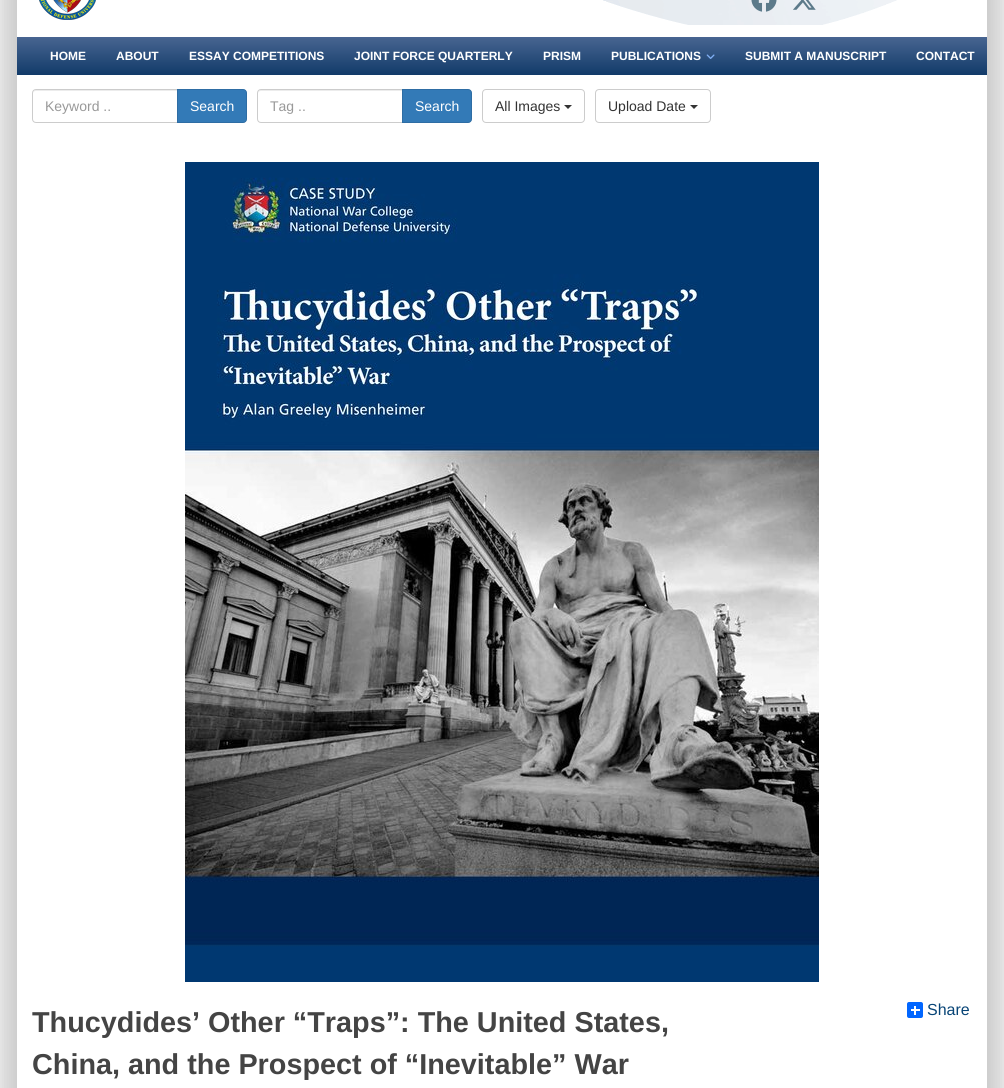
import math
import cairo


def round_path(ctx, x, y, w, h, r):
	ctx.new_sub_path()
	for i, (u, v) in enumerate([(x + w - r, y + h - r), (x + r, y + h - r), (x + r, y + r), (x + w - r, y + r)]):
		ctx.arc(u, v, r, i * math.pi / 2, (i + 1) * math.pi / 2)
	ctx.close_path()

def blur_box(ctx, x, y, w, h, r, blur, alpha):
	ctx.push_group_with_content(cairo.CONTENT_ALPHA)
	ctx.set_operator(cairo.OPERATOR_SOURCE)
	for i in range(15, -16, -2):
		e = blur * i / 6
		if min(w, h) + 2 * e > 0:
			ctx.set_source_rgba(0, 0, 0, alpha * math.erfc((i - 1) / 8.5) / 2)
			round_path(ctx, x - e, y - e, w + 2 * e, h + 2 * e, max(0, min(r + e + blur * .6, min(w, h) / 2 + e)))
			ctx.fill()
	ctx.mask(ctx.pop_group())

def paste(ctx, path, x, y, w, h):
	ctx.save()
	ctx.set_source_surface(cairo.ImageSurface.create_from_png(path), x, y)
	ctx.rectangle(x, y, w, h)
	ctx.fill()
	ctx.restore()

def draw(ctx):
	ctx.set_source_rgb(0.933, 0.933, 0.933)
	ctx.paint()
	ctx.set_source_rgb(0, 0, 0)
	blur_box(ctx, 3, -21, 978, 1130, 0, 7, 0.12)
	blur_box(ctx, 23, -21, 978, 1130, 0, 7, 0.12)
	ctx.set_source_rgb(1, 1, 1)
	ctx.rectangle(17, 0, 970, 1088)
	ctx.fill()
	paste(ctx, 'media/1.png', 603, 0, 294, 25)
	paste(ctx, 'media/2.png', 39, 0, 57, 20)
	paste(ctx, 'media/3.png', 751, 0, 26, 12)
	paste(ctx, 'media/4.png', 793, 0, 23, 10)
	gradient = cairo.LinearGradient(502, 37, 502, 75)
	gradient.add_color_stop_rgba(0, 0.282, 0.396, 0.569, 1)
	gradient.add_color_stop_rgba(0.99, 0.071, 0.231, 0.412, 1)
	ctx.set_source(gradient)
	ctx.rectangle(17, 37, 970, 38)
	ctx.fill()
	ctx.select_font_face('Liberation Sans', cairo.FONT_SLANT_NORMAL, cairo.FONT_WEIGHT_BOLD)
	ctx.set_font_size(12)
	ctx.set_source_rgb(1, 1, 1)
	for x, y, s in [
		(50, 60, 'HOME'),
		(116, 60, 'ABOUT'),
		(189, 60, 'ESSAY COMPETITIONS'),
		(354, 60, 'JOINT FORCE QUARTERLY'),
		(543, 60, 'PRISM'),
		(611, 60, 'PUBLICATIONS'),
	]:
		ctx.move_to(x, y)
		ctx.show_text(s)
	paste(ctx, 'media/5.png', 706, 54, 9, 5)
	ctx.move_to(745, 60)
	ctx.show_text('SUBMIT A MANUSCRIPT')
	ctx.move_to(916, 60)
	ctx.show_text('CONTACT')
	ctx.set_source_rgb(0.925, 0.925, 0.925)
	ctx.new_path()
	ctx.move_to(36, 91)
	ctx.line_to(177, 91)
	ctx.line_to(177, 90)
	ctx.line_to(36, 90)
	ctx.curve_to(34, 90, 33, 92, 33, 94)
	ctx.curve_to(33, 92, 34, 91, 36, 91)
	ctx.close_path()
	ctx.fill()
	ctx.new_path()
	ctx.move_to(36, 89.5)
	ctx.line_to(177.5, 89.5)
	ctx.line_to(177.5, 122.5)
	ctx.line_to(36, 122.5)
	ctx.curve_to(34, 122.5, 32.5, 121, 32.5, 119)
	ctx.line_to(32.5, 93)
	ctx.curve_to(32.5, 91, 34, 89.5, 36, 89.5)
	ctx.close_path()
	ctx.set_source_rgb(0.8, 0.8, 0.8)
	ctx.set_line_width(1)
	ctx.stroke()
	ctx.select_font_face('Liberation Sans')
	ctx.set_font_size(14)
	ctx.set_source_rgb(0.6, 0.6, 0.6)
	ctx.move_to(45, 111)
	ctx.show_text('Keyword ..')
	ctx.set_source_rgb(0.2, 0.478, 0.718)
	ctx.new_path()
	ctx.move_to(177.5, 89.5)
	ctx.line_to(243, 89.5)
	ctx.curve_to(245, 89.5, 246.5, 91, 246.5, 93)
	ctx.line_to(246.5, 119)
	ctx.curve_to(246.5, 121, 245, 122.5, 243, 122.5)
	ctx.line_to(177.5, 122.5)
	ctx.close_path()
	ctx.fill_preserve()
	ctx.set_source_rgb(0.18, 0.427, 0.643)
	ctx.stroke()
	ctx.set_source_rgb(1, 1, 1)
	ctx.move_to(190, 111)
	ctx.show_text('Search')
	ctx.set_source_rgb(0.925, 0.925, 0.925)
	ctx.new_path()
	ctx.move_to(261, 91)
	ctx.line_to(402, 91)
	ctx.line_to(402, 90)
	ctx.line_to(261, 90)
	ctx.curve_to(259, 90, 258, 92, 258, 94)
	ctx.curve_to(258, 92, 259, 91, 261, 91)
	ctx.close_path()
	ctx.fill()
	ctx.new_path()
	ctx.move_to(261, 89.5)
	ctx.line_to(402.5, 89.5)
	ctx.line_to(402.5, 122.5)
	ctx.line_to(261, 122.5)
	ctx.curve_to(259, 122.5, 257.5, 121, 257.5, 119)
	ctx.line_to(257.5, 93)
	ctx.curve_to(257.5, 91, 259, 89.5, 261, 89.5)
	ctx.close_path()
	ctx.set_source_rgb(0.8, 0.8, 0.8)
	ctx.stroke()
	ctx.set_source_rgb(0.6, 0.6, 0.6)
	ctx.move_to(270, 111)
	ctx.show_text('Tag ..')
	ctx.set_source_rgb(0.2, 0.478, 0.718)
	ctx.new_path()
	ctx.move_to(402.5, 89.5)
	ctx.line_to(468, 89.5)
	ctx.curve_to(470, 89.5, 471.5, 91, 471.5, 93)
	ctx.line_to(471.5, 119)
	ctx.curve_to(471.5, 121, 470, 122.5, 468, 122.5)
	ctx.line_to(402.5, 122.5)
	ctx.close_path()
	ctx.fill_preserve()
	ctx.set_source_rgb(0.18, 0.427, 0.643)
	ctx.stroke()
	ctx.set_source_rgb(1, 1, 1)
	ctx.move_to(415, 111)
	ctx.show_text('Search')
	round_path(ctx, 482.5, 89.5, 102, 33, 3.5)
	ctx.set_source_rgb(0.8, 0.8, 0.8)
	ctx.stroke()
	ctx.set_source_rgb(0.2, 0.2, 0.2)
	ctx.move_to(495, 111)
	ctx.show_text('All Images')
	ctx.new_path()
	ctx.move_to(564, 105)
	ctx.line_to(572, 105)
	ctx.line_to(568, 109)
	ctx.close_path()
	ctx.fill()
	round_path(ctx, 595.5, 89.5, 115, 33, 3.5)
	ctx.set_source_rgb(0.8, 0.8, 0.8)
	ctx.stroke()
	ctx.set_source_rgb(0.2, 0.2, 0.2)
	ctx.move_to(608, 111)
	ctx.show_text('Upload Date')
	ctx.new_path()
	ctx.move_to(690, 105)
	ctx.line_to(698, 105)
	ctx.line_to(694, 109)
	ctx.close_path()
	ctx.fill()
	paste(ctx, 'media/6.png', 185, 162, 634, 820)
	ctx.set_source_rgb(0.004, 0.4, 1)
	round_path(ctx, 907, 1002, 16, 16, 2)
	ctx.fill()
	ctx.set_source_rgb(1, 1, 1)
	ctx.rectangle(914, 1006, 2, 9)
	ctx.fill()
	ctx.rectangle(911, 1009, 9, 2)
	ctx.fill()
	ctx.set_font_size(16)
	ctx.set_source_rgb(0.031, 0.267, 0.463)
	ctx.move_to(927, 1015)
	ctx.show_text('Share')
	ctx.select_font_face('Liberation Sans', cairo.FONT_SLANT_NORMAL, cairo.FONT_WEIGHT_BOLD)
	ctx.set_font_size(28.8)
	ctx.set_source_rgb(0.267, 0.267, 0.267)
	ctx.move_to(32, 1032)
	ctx.show_text('Thucydides’ Other “Traps”: The United States,')
	ctx.move_to(32, 1074)
	ctx.show_text('China, and the Prospect of “Inevitable” War')


surface = cairo.ImageSurface(cairo.FORMAT_RGB24, 1004, 1088)
ctx = cairo.Context(surface)
options = cairo.FontOptions()
options.set_hint_metrics(cairo.HINT_METRICS_OFF)
options.set_hint_style(cairo.HINT_STYLE_NONE)
ctx.set_font_options(options)
ctx.set_miter_limit(4)
draw(ctx)
surface.write_to_png('image.png')
